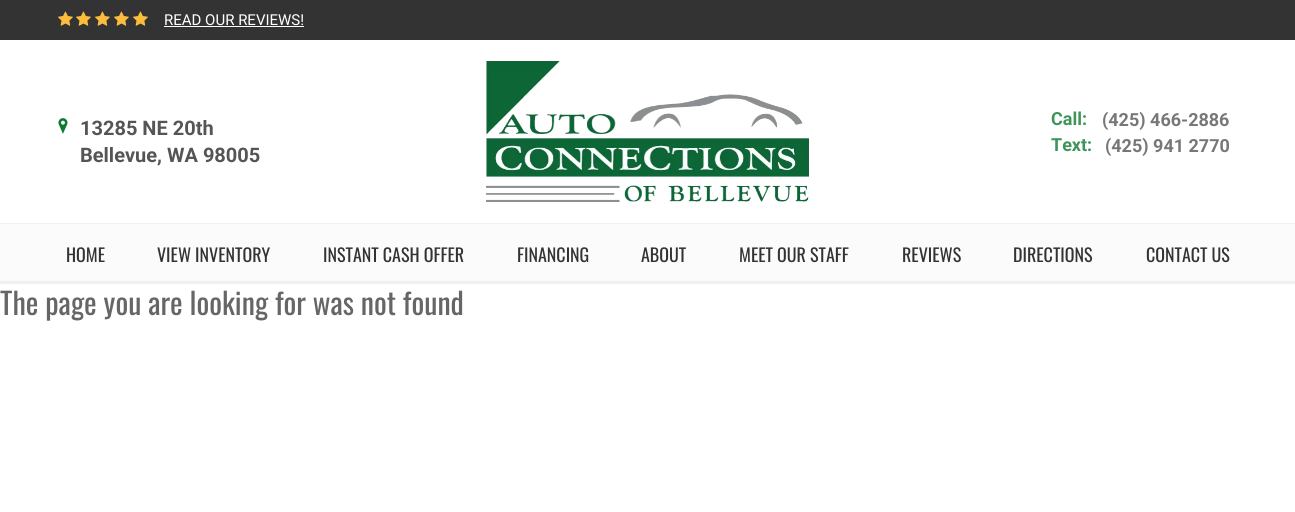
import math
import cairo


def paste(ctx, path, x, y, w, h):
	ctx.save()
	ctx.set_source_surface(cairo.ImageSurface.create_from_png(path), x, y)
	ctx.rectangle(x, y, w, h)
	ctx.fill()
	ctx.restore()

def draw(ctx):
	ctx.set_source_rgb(1, 1, 1)
	ctx.paint()
	ctx.set_source_rgb(0.2, 0.2, 0.2)
	ctx.rectangle(0, 0, 1295, 40)
	ctx.fill()
	paste(ctx, 'media/1.png', 58, 11, 15, 15)
	paste(ctx, 'media/1.png', 76, 11, 15, 15)
	paste(ctx, 'media/1.png', 95, 11, 15, 15)
	paste(ctx, 'media/1.png', 114, 11, 15, 15)
	paste(ctx, 'media/1.png', 133, 11, 15, 15)
	ctx.select_font_face('Roboto')
	ctx.set_font_size(15)
	ctx.set_source_rgb(1, 1, 1)
	ctx.move_to(164, 25)
	ctx.show_text('READ OUR REVIEWS!')
	ctx.rectangle(164, 26, 140, 1)
	ctx.fill()
	paste(ctx, 'media/2.png', 58, 118, 10, 16)
	ctx.select_font_face('Roboto', cairo.FONT_SLANT_NORMAL, cairo.FONT_WEIGHT_BOLD)
	ctx.set_font_size(20)
	ctx.set_source_rgb(0.333, 0.333, 0.333)
	ctx.move_to(80, 135)
	ctx.show_text('13285 NE 20th')
	ctx.move_to(80, 162)
	ctx.show_text('Bellevue, WA 98005')
	paste(ctx, 'media/3.png', 486, 61, 323, 141)
	ctx.set_font_size(18)
	ctx.set_source_rgb(0.239, 0.584, 0.349)
	ctx.move_to(1051, 125)
	ctx.show_text('Call:')
	ctx.set_source_rgb(0.467, 0.467, 0.467)
	ctx.move_to(1102, 126)
	ctx.show_text('(425) 466-2886')
	ctx.set_source_rgb(0.239, 0.584, 0.349)
	ctx.move_to(1051, 151)
	ctx.show_text('Text:')
	ctx.set_source_rgb(0.467, 0.467, 0.467)
	ctx.move_to(1105, 152)
	ctx.show_text('(425) 941 2770')
	ctx.set_source_rgb(0.984, 0.984, 0.984)
	ctx.rectangle(0, 224, 1295, 57)
	ctx.fill()
	ctx.set_source_rgb(0.941, 0.941, 0.941)
	ctx.rectangle(0, 223, 1295, 1)
	ctx.fill()
	ctx.select_font_face('Oswald')
	ctx.set_source_rgb(0.2, 0.2, 0.2)
	for x, y, s in [
		(66, 262, 'HOME'),
		(157, 262, 'VIEW INVENTORY'),
		(323, 262, 'INSTANT CASH OFFER'),
		(517, 262, 'FINANCING'),
		(641, 262, 'ABOUT'),
		(739, 262, 'MEET OUR STAFF'),
		(902, 262, 'REVIEWS'),
		(1013, 262, 'DIRECTIONS'),
		(1146, 262, 'CONTACT US'),
	]:
		ctx.move_to(x, y)
		ctx.show_text(s)
	ctx.set_source_rgb(0.941, 0.941, 0.941)
	ctx.rectangle(0, 281, 1295, 3)
	ctx.fill()
	ctx.set_font_size(30)
	ctx.set_source_rgb(0.4, 0.4, 0.4)
	ctx.move_to(0, 315)
	ctx.show_text('The page you are looking for was not found')


surface = cairo.ImageSurface(cairo.FORMAT_RGB24, 1295, 512)
ctx = cairo.Context(surface)
options = cairo.FontOptions()
options.set_hint_metrics(cairo.HINT_METRICS_OFF)
options.set_hint_style(cairo.HINT_STYLE_NONE)
ctx.set_font_options(options)
ctx.set_miter_limit(4)
draw(ctx)
surface.write_to_png('image.png')
